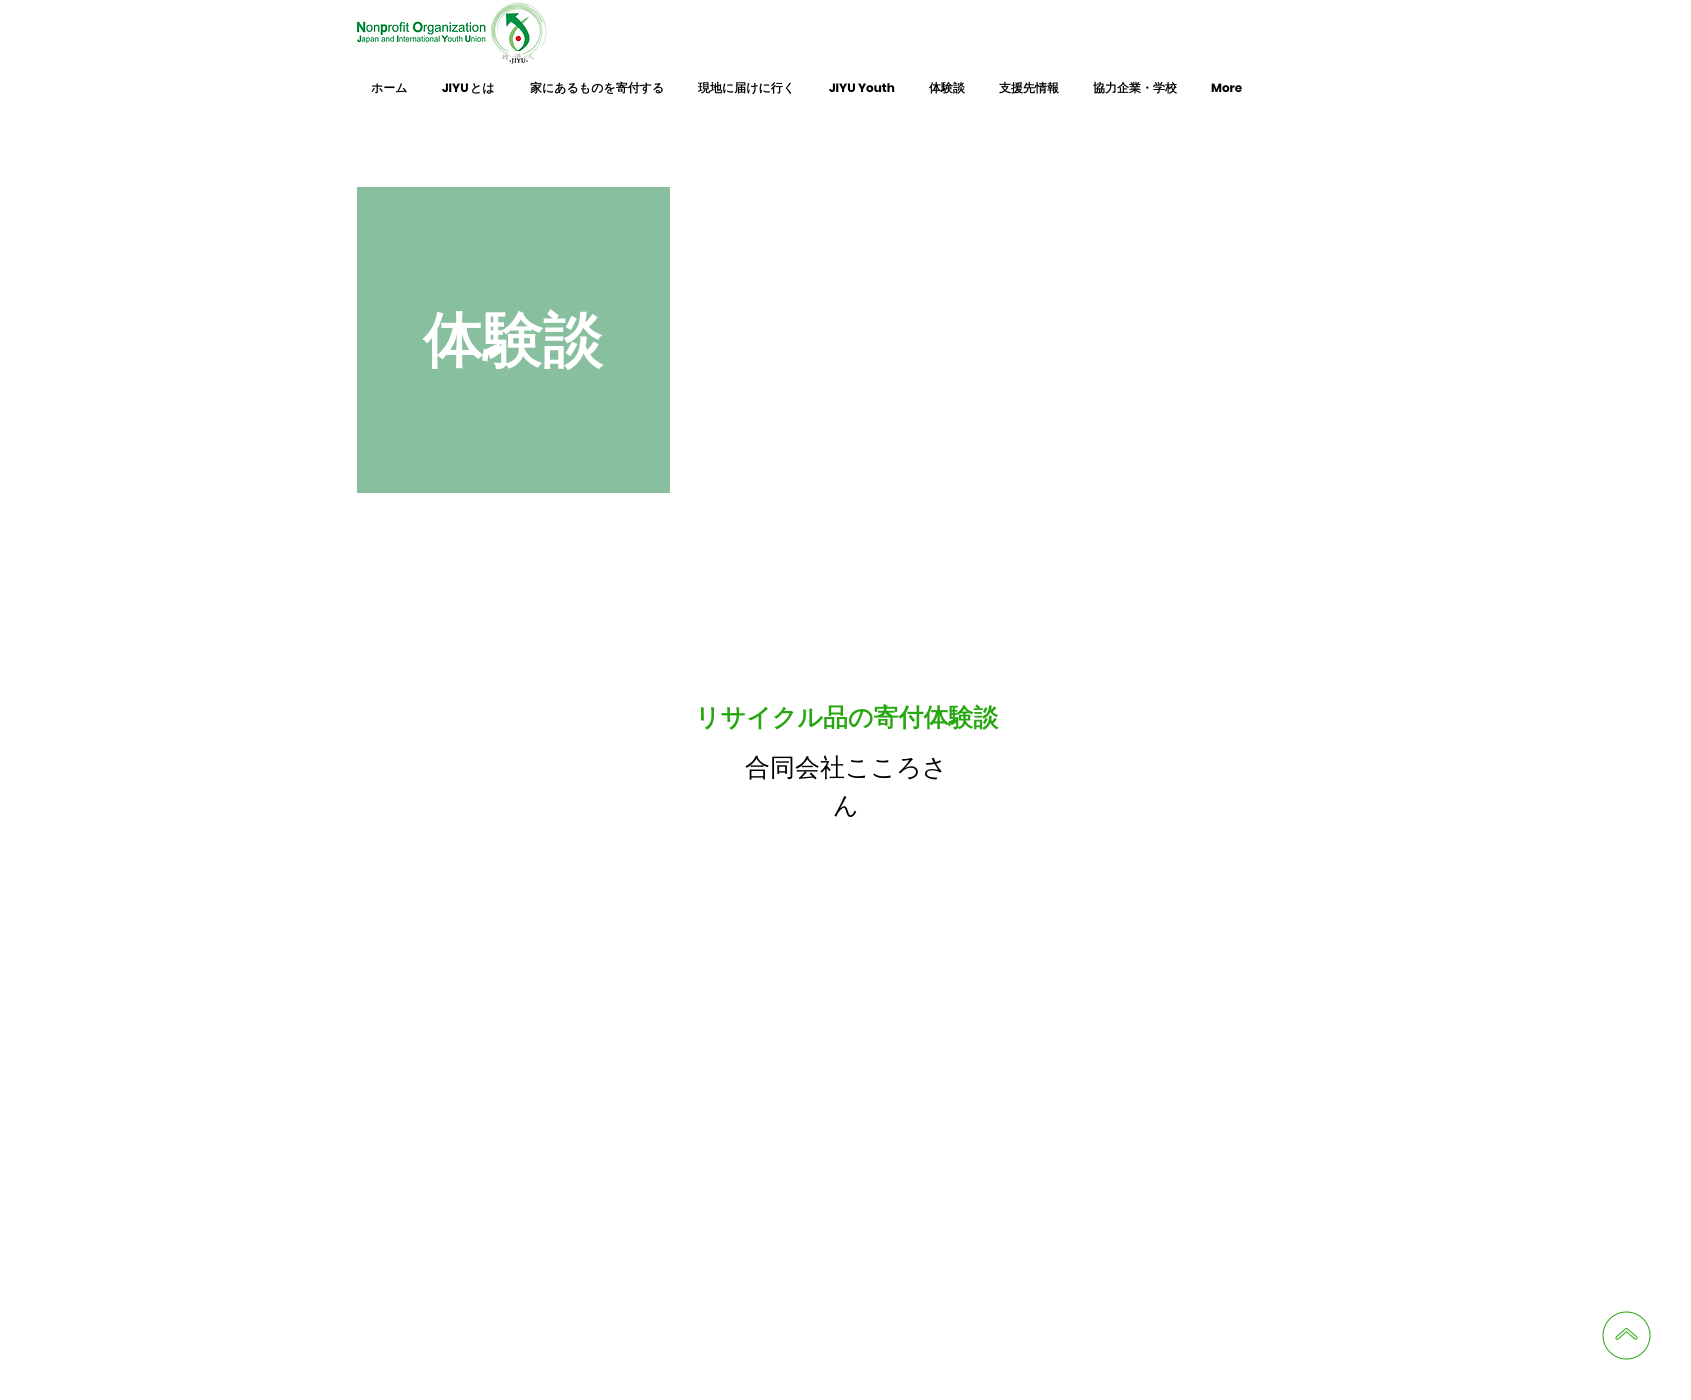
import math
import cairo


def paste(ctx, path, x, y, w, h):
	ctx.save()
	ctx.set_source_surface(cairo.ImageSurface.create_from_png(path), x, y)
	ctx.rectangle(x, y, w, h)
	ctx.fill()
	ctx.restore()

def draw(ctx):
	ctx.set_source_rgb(1, 1, 1)
	ctx.paint()
	paste(ctx, 'media/1.png', 356, 2, 191, 62)
	ctx.select_font_face('WenQuanYi Zen Hei', cairo.FONT_SLANT_NORMAL, cairo.FONT_WEIGHT_BOLD)
	ctx.set_font_size(12)
	ctx.set_source_rgb(0, 0, 0)
	ctx.move_to(371, 92)
	ctx.show_text('ホーム')
	ctx.select_font_face('Poppins', cairo.FONT_SLANT_NORMAL, cairo.FONT_WEIGHT_BOLD)
	ctx.move_to(442, 92)
	ctx.show_text('JIYU')
	ctx.select_font_face('WenQuanYi Zen Hei', cairo.FONT_SLANT_NORMAL, cairo.FONT_WEIGHT_BOLD)
	for x, y, s in [
		(470, 92, 'とは'),
		(530, 92, '家にあるものを寄付する'),
		(698, 92, '現地に届けに行く'),
	]:
		ctx.move_to(x, y)
		ctx.show_text(s)
	ctx.select_font_face('Poppins', cairo.FONT_SLANT_NORMAL, cairo.FONT_WEIGHT_BOLD)
	ctx.move_to(829, 92)
	ctx.show_text('JIYU Youth')
	ctx.select_font_face('WenQuanYi Zen Hei', cairo.FONT_SLANT_NORMAL, cairo.FONT_WEIGHT_BOLD)
	for x, y, s in [
		(929, 92, '体験談'),
		(999, 92, '支援先情報'),
		(1093, 92, '協力企業・学校'),
	]:
		ctx.move_to(x, y)
		ctx.show_text(s)
	ctx.select_font_face('Poppins', cairo.FONT_SLANT_NORMAL, cairo.FONT_WEIGHT_BOLD)
	ctx.move_to(1211, 92)
	ctx.show_text('More')
	ctx.set_source_rgb(0.529, 0.749, 0.624)
	ctx.rectangle(357, 187, 313, 306)
	ctx.fill()
	ctx.select_font_face('WenQuanYi Zen Hei', cairo.FONT_SLANT_NORMAL, cairo.FONT_WEIGHT_BOLD)
	ctx.set_font_size(60)
	ctx.set_source_rgb(1, 1, 1)
	ctx.move_to(423, 361)
	ctx.show_text('体験談')
	ctx.set_font_size(25)
	ctx.set_source_rgb(0.149, 0.651, 0.059)
	ctx.move_to(695, 726)
	ctx.show_text('リサイクル品の寄付体験談')
	ctx.select_font_face('WenQuanYi Zen Hei Medium')
	ctx.set_source_rgb(0, 0, 0)
	ctx.move_to(745, 776)
	ctx.show_text('合同会社こころさ')
	ctx.move_to(833, 814)
	ctx.show_text('ん')
	paste(ctx, 'media/2.png', 1602, 1311, 49, 49)


surface = cairo.ImageSurface(cairo.FORMAT_RGB24, 1691, 1400)
ctx = cairo.Context(surface)
options = cairo.FontOptions()
options.set_hint_metrics(cairo.HINT_METRICS_OFF)
options.set_hint_style(cairo.HINT_STYLE_NONE)
ctx.set_font_options(options)
ctx.set_miter_limit(4)
draw(ctx)
surface.write_to_png('image.png')
